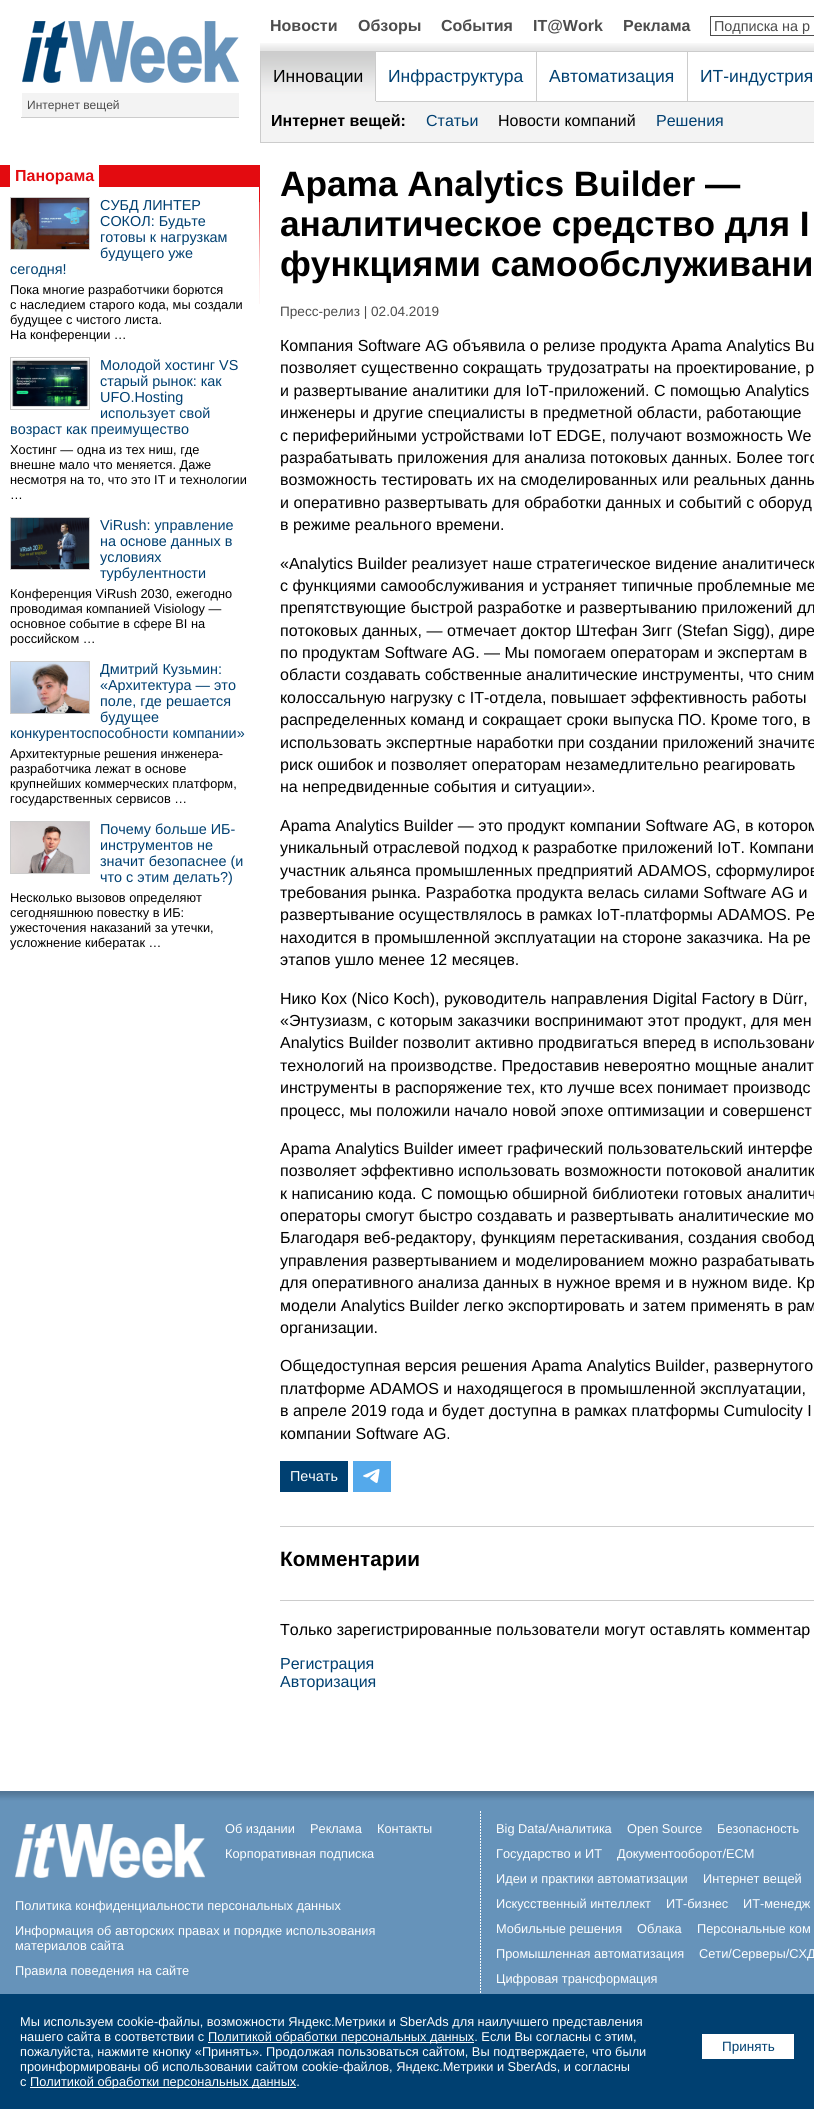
import math
import cairo


def paste(ctx, path, x, y, w, h):
	ctx.save()
	ctx.set_source_surface(cairo.ImageSurface.create_from_png(path), x, y)
	ctx.rectangle(x, y, w, h)
	ctx.fill()
	ctx.restore()

def draw(ctx):
	ctx.set_source_rgb(1, 1, 1)
	ctx.paint()
	paste(ctx, 'media/1.png', 22, 21, 217, 62)
	ctx.set_source_rgb(0.953, 0.953, 0.953)
	ctx.rectangle(22, 93, 217, 24)
	ctx.fill()
	ctx.set_source_rgb(0.8, 0.8, 0.8)
	ctx.rectangle(21, 117, 218, 1)
	ctx.fill()
	ctx.select_font_face('Liberation Sans')
	ctx.set_font_size(12)
	ctx.set_source_rgb(0.298, 0.298, 0.298)
	ctx.move_to(27, 109)
	ctx.show_text('Интернет вещей')
	paste(ctx, 'media/2.png', 260, 43, 554, 8)
	ctx.select_font_face('Liberation Sans', cairo.FONT_SLANT_NORMAL, cairo.FONT_WEIGHT_BOLD)
	ctx.set_font_size(16)
	for x, y, s in [
		(270, 31, 'Новости'),
		(358, 31, 'Обзоры'),
		(441, 31, 'События'),
		(533, 31, 'IT@Work'),
		(623, 31, 'Реклама'),
	]:
		ctx.move_to(x, y)
		ctx.show_text(s)
	ctx.rectangle(710.5, 16.5, 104, 19)
	ctx.set_line_width(1)
	ctx.stroke()
	ctx.select_font_face('Liberation Sans')
	ctx.set_font_size(14.4)
	ctx.move_to(714, 31)
	ctx.show_text('Подписка на р')
	paste(ctx, 'media/3.png', 261, 52, 114, 49)
	ctx.set_source_rgb(0.8, 0.8, 0.8)
	ctx.rectangle(687, 51, 127, 1)
	ctx.rectangle(376, 101, 438, 1)
	ctx.rectangle(687, 51, 1, 51)
	ctx.rectangle(536, 51, 152, 1)
	ctx.rectangle(536, 51, 1, 51)
	ctx.rectangle(375, 51, 162, 1)
	ctx.rectangle(375, 51, 1, 51)
	ctx.rectangle(260, 51, 116, 1)
	ctx.rectangle(260, 142, 554, 1)
	ctx.rectangle(260, 101, 1, 42)
	ctx.fill()
	ctx.set_source_rgb(0.953, 0.953, 0.953)
	ctx.rectangle(260, 101, 116, 1)
	ctx.fill()
	ctx.set_source_rgb(0.8, 0.8, 0.8)
	ctx.rectangle(260, 51, 1, 51)
	ctx.fill()
	ctx.set_font_size(17.5)
	ctx.set_source_rgb(0, 0, 0)
	ctx.move_to(273, 82)
	ctx.show_text('Инновации')
	ctx.set_source_rgb(0, 0.251, 0.443)
	for x, y, s in [
		(388, 82, 'Инфраструктура'),
		(549, 82, 'Автоматизация'),
		(700, 82, 'ИТ-индустрия'),
	]:
		ctx.move_to(x, y)
		ctx.show_text(s)
	ctx.set_source_rgb(0.953, 0.953, 0.953)
	ctx.rectangle(261, 102, 553, 40)
	ctx.fill()
	ctx.select_font_face('Liberation Sans', cairo.FONT_SLANT_NORMAL, cairo.FONT_WEIGHT_BOLD)
	ctx.set_font_size(16)
	ctx.set_source_rgb(0, 0, 0)
	ctx.move_to(271, 126)
	ctx.show_text('Интернет вещей:')
	ctx.select_font_face('Liberation Sans')
	ctx.set_source_rgb(0, 0.251, 0.443)
	ctx.move_to(426, 126)
	ctx.show_text('Статьи')
	ctx.set_source_rgb(0, 0, 0)
	ctx.move_to(498, 126)
	ctx.show_text('Новости компаний')
	ctx.set_source_rgb(0, 0.251, 0.443)
	ctx.move_to(656, 126)
	ctx.show_text('Решения')
	ctx.set_source_rgb(0.89, 0.043, 0.063)
	ctx.rectangle(0, 165, 260, 22)
	ctx.fill()
	ctx.set_source_rgb(1, 1, 1)
	ctx.rectangle(10, 165, 89, 22)
	ctx.fill()
	ctx.select_font_face('Liberation Sans', cairo.FONT_SLANT_NORMAL, cairo.FONT_WEIGHT_BOLD)
	ctx.set_source_rgb(0.89, 0.043, 0.063)
	ctx.move_to(15, 181)
	ctx.show_text('Панорама')
	ctx.rectangle(10.5, 197.5, 79, 52)
	ctx.set_source_rgb(0.8, 0.8, 0.8)
	ctx.stroke()
	paste(ctx, 'media/4.png', 11, 198, 78, 51)
	ctx.select_font_face('Liberation Sans')
	ctx.set_font_size(14.4)
	ctx.set_source_rgb(0, 0.251, 0.443)
	for x, y, s in [
		(100, 210, 'СУБД ЛИНТЕР'),
		(100, 226, 'СОКОЛ: Будьте'),
		(100, 242, 'готовы к нагрузкам'),
		(100, 258, 'будущего уже'),
		(10, 274, 'сегодня!'),
	]:
		ctx.move_to(x, y)
		ctx.show_text(s)
	ctx.set_font_size(12.8)
	ctx.set_source_rgb(0, 0, 0)
	for x, y, s in [
		(10, 294, 'Пока многие разработчики борются'),
		(10, 309, 'с наследием старого кода, мы создали'),
		(10, 324, 'будущее с чистого листа.'),
		(10, 339, 'На конференции …'),
	]:
		ctx.move_to(x, y)
		ctx.show_text(s)
	ctx.rectangle(10.5, 357.5, 79, 52)
	ctx.set_source_rgb(0.8, 0.8, 0.8)
	ctx.stroke()
	paste(ctx, 'media/5.png', 11, 359, 78, 48)
	ctx.set_font_size(14.4)
	ctx.set_source_rgb(0, 0.251, 0.443)
	for x, y, s in [
		(100, 370, 'Молодой хостинг VS'),
		(100, 386, 'старый рынок: как'),
		(100, 402, 'UFO.Hosting'),
		(100, 418, 'использует свой'),
		(10, 434, 'возраст как преимущество'),
	]:
		ctx.move_to(x, y)
		ctx.show_text(s)
	ctx.set_font_size(12.8)
	ctx.set_source_rgb(0, 0, 0)
	for x, y, s in [
		(10, 454, 'Хостинг — одна из тех ниш, где'),
		(10, 469, 'внешне мало что меняется. Даже'),
		(10, 484, 'несмотря на то, что это IT и технологии'),
		(10, 499, '…'),
	]:
		ctx.move_to(x, y)
		ctx.show_text(s)
	ctx.rectangle(10.5, 517.5, 79, 52)
	ctx.set_source_rgb(0.8, 0.8, 0.8)
	ctx.stroke()
	paste(ctx, 'media/6.png', 11, 518, 78, 51)
	ctx.set_font_size(14.4)
	ctx.set_source_rgb(0, 0.251, 0.443)
	for x, y, s in [
		(100, 530, 'ViRush: управление'),
		(100, 546, 'на основе данных в'),
		(100, 562, 'условиях'),
		(100, 578, 'турбулентности'),
	]:
		ctx.move_to(x, y)
		ctx.show_text(s)
	ctx.set_font_size(12.8)
	ctx.set_source_rgb(0, 0, 0)
	for x, y, s in [
		(10, 598, 'Конференция ViRush 2030, ежегодно'),
		(10, 613, 'проводимая компанией Visiology —'),
		(10, 628, 'основное событие в сфере BI на'),
		(10, 643, 'российском …'),
	]:
		ctx.move_to(x, y)
		ctx.show_text(s)
	ctx.rectangle(10.5, 661.5, 79, 52)
	ctx.set_source_rgb(0.8, 0.8, 0.8)
	ctx.stroke()
	paste(ctx, 'media/7.png', 11, 662, 78, 51)
	ctx.set_font_size(14.4)
	ctx.set_source_rgb(0, 0.251, 0.443)
	for x, y, s in [
		(100, 674, 'Дмитрий Кузьмин:'),
		(100, 690, '«Архитектура — это'),
		(100, 706, 'поле, где решается'),
		(100, 722, 'будущее'),
		(10, 738, 'конкурентоспособности компании»'),
	]:
		ctx.move_to(x, y)
		ctx.show_text(s)
	ctx.set_font_size(12.8)
	ctx.set_source_rgb(0, 0, 0)
	for x, y, s in [
		(10, 758, 'Архитектурные решения инженера-'),
		(10, 773, 'разработчика лежат в основе'),
		(10, 788, 'крупнейших коммерческих платформ,'),
		(10, 803, 'государственных сервисов …'),
	]:
		ctx.move_to(x, y)
		ctx.show_text(s)
	ctx.rectangle(10.5, 821.5, 79, 52)
	ctx.set_source_rgb(0.8, 0.8, 0.8)
	ctx.stroke()
	paste(ctx, 'media/8.png', 11, 822, 78, 51)
	ctx.set_font_size(14.4)
	ctx.set_source_rgb(0, 0.251, 0.443)
	for x, y, s in [
		(100, 834, 'Почему больше ИБ-'),
		(100, 850, 'инструментов не'),
		(100, 866, 'значит безопаснее (и'),
		(100, 882, 'что с этим делать?)'),
	]:
		ctx.move_to(x, y)
		ctx.show_text(s)
	ctx.set_font_size(12.8)
	ctx.set_source_rgb(0, 0, 0)
	for x, y, s in [
		(10, 902, 'Несколько вызовов определяют'),
		(10, 917, 'сегодняшнюю повестку в ИБ:'),
		(10, 932, 'ужесточения наказаний за утечки,'),
		(10, 947, 'усложнение кибератак …'),
	]:
		ctx.move_to(x, y)
		ctx.show_text(s)
	paste(ctx, 'media/9.png', 259, 187, 1, 117)
	ctx.select_font_face('Liberation Sans', cairo.FONT_SLANT_NORMAL, cairo.FONT_WEIGHT_BOLD)
	ctx.set_font_size(35.25)
	for x, y, s in [
		(280, 196, 'Apama Analytics Builder —'),
		(280, 236, 'аналитическое средство для I'),
		(280, 276, 'функциями самообслуживани'),
	]:
		ctx.move_to(x, y)
		ctx.show_text(s)
	ctx.select_font_face('Liberation Sans')
	ctx.set_font_size(13.6)
	ctx.set_source_rgb(0.298, 0.298, 0.298)
	ctx.move_to(280, 316)
	ctx.show_text('Пресс-релиз | 02.04.2019')
	ctx.set_font_size(16)
	ctx.set_source_rgb(0, 0, 0)
	for x, y, s in [
		(280, 351, 'Компания Software AG объявила о релизе продукта Apama Analytics Bu'),
		(280, 373, 'позволяет существенно сокращать трудозатраты на проектирование, р'),
		(280, 396, 'и развертывание аналитики для IoT-приложений. С помощью Analytics'),
		(280, 418, 'инженеры и другие специалисты в предметной области, работающие'),
		(280, 441, 'с периферийными устройствами IoT EDGE, получают возможность We'),
		(280, 463, 'разрабатывать приложения для анализа потоковых данных. Более того'),
		(280, 485, 'возможность тестировать их на смоделированных или реальных данны'),
		(280, 508, 'и оперативно развертывать для обработки данных и событий с оборуд'),
		(280, 530, 'в режиме реального времени.'),
		(280, 569, '«Analytics Builder реализует наше стратегическое видение аналитическ'),
		(280, 591, 'с функциями самообслуживания и устраняет типичные проблемные ме'),
		(280, 613, 'препятствующие быстрой разработке и развертыванию приложений дл'),
		(280, 636, 'потоковых данных, — отмечает доктор Штефан Зигг (Stefan Sigg), дире'),
		(280, 658, 'по продуктам Software AG. — Мы помогаем операторам и экспертам в'),
		(280, 680, 'области создавать собственные аналитические инструменты, что сним'),
		(280, 703, 'колоссальную нагрузку с IT-отдела, повышает эффективность работы'),
		(280, 725, 'распределенных команд и сокращает сроки выпуска ПО. Кроме того, в'),
		(280, 748, 'использовать экспертные наработки при создании приложений значите'),
		(280, 770, 'риск ошибок и позволяет операторам незамедлительно реагировать'),
		(280, 792, 'на непредвиденные события и ситуации».'),
		(280, 831, 'Apama Analytics Builder — это продукт компании Software AG, в котором'),
		(280, 853, 'уникальный отраслевой подход к разработке приложений IoT. Компани'),
		(280, 876, 'участник альянса промышленных предприятий ADAMOS, сформулиров'),
		(280, 898, 'требования рынка. Разработка продукта велась силами Software AG и'),
		(280, 920, 'развертывание осуществлялось в рамках IoT-платформы ADAMOS. Ре'),
		(280, 943, 'находится в промышленной эксплуатации на стороне заказчика. На ре'),
		(280, 965, 'этапов ушло менее 12 месяцев.'),
		(280, 1004, 'Нико Кох (Nico Koch), руководитель направления Digital Factory в Dürr,'),
		(280, 1026, '«Энтузиазм, с которым заказчики воспринимают этот продукт, для мен'),
		(280, 1048, 'Analytics Builder позволит активно продвигаться вперед в использовани'),
		(280, 1071, 'технологий на производстве. Предоставив невероятно мощные аналит'),
		(280, 1093, 'инструменты в распоряжение тех, кто лучше всех понимает производс'),
		(280, 1116, 'процесс, мы положили начало новой эпохе оптимизации и совершенст'),
		(280, 1154, 'Apama Analytics Builder имеет графический пользовательский интерфе'),
		(280, 1176, 'позволяет эффективно использовать возможности потоковой аналитик'),
		(280, 1199, 'к написанию кода. С помощью обширной библиотеки готовых аналитич'),
		(280, 1221, 'операторы смогут быстро создавать и развертывать аналитические мо'),
		(280, 1243, 'Благодаря веб-редактору, функциям перетаскивания, создания свобод'),
		(280, 1266, 'управления развертыванием и моделированием можно разрабатывать'),
		(280, 1288, 'для оперативного анализа данных в нужное время и в нужном виде. Кр'),
		(280, 1311, 'модели Analytics Builder легко экспортировать и затем применять в рам'),
		(280, 1333, 'организации.'),
		(280, 1371, 'Общедоступная версия решения Apama Analytics Builder, развернутого'),
		(280, 1394, 'платформе ADAMOS и находящегося в промышленной эксплуатации,'),
		(280, 1416, 'в апреле 2019 года и будет доступна в рамках платформы Cumulocity I'),
		(280, 1439, 'компании Software AG.'),
	]:
		ctx.move_to(x, y)
		ctx.show_text(s)
	ctx.set_source_rgb(0, 0.251, 0.443)
	ctx.rectangle(280, 1461, 68, 31)
	ctx.fill()
	ctx.set_font_size(14.4)
	ctx.set_source_rgb(1, 1, 1)
	ctx.move_to(290, 1481)
	ctx.show_text('Печать')
	paste(ctx, 'media/10.png', 353, 1461, 38, 31)
	ctx.set_source_rgb(0.8, 0.8, 0.8)
	ctx.rectangle(280, 1526, 534, 1)
	ctx.fill()
	ctx.select_font_face('Liberation Sans', cairo.FONT_SLANT_NORMAL, cairo.FONT_WEIGHT_BOLD)
	ctx.set_font_size(20.75)
	ctx.set_source_rgb(0, 0, 0)
	ctx.move_to(280, 1566)
	ctx.show_text('Комментарии')
	ctx.set_source_rgb(0.8, 0.8, 0.8)
	ctx.rectangle(280, 1600, 534, 1)
	ctx.fill()
	ctx.select_font_face('Liberation Sans')
	ctx.set_font_size(16)
	ctx.set_source_rgb(0, 0, 0)
	ctx.move_to(280, 1635)
	ctx.show_text('Только зарегистрированные пользователи могут оставлять комментар')
	ctx.set_source_rgb(0, 0.251, 0.443)
	ctx.move_to(280, 1669)
	ctx.show_text('Регистрация')
	ctx.move_to(280, 1687)
	ctx.show_text('Авторизация')
	paste(ctx, 'media/11.png', 0, 1791, 814, 203)
	paste(ctx, 'media/12.png', 15, 1824, 190, 54)
	ctx.set_font_size(12.8)
	ctx.set_source_rgb(1, 1, 1)
	for x, y, s in [
		(225, 1833, 'Об издании'),
		(310, 1833, 'Реклама'),
		(377, 1833, 'Контакты'),
		(225, 1858, 'Корпоративная подписка'),
		(15, 1910, 'Политика конфиденциальности персональных данных'),
		(15, 1935, 'Информация об авторских правах и порядке использования'),
		(15, 1950, 'материалов сайта'),
		(15, 1975, 'Правила поведения на сайте'),
	]:
		ctx.move_to(x, y)
		ctx.show_text(s)
	paste(ctx, 'media/13.png', 480, 1811, 1, 182)
	for x, y, s in [
		(496, 1833, 'Big Data/Аналитика'),
		(627, 1833, 'Open Source'),
		(717, 1833, 'Безопасность'),
		(496, 1858, 'Государство и ИТ'),
		(617, 1858, 'Документооборот/ECM'),
		(496, 1883, 'Идеи и практики автоматизации'),
		(703, 1883, 'Интернет вещей'),
		(496, 1908, 'Искусственный интеллект'),
		(666, 1908, 'ИТ-бизнес'),
		(743, 1908, 'ИТ-менедж'),
		(496, 1933, 'Мобильные решения'),
		(637, 1933, 'Облака'),
		(697, 1933, 'Персональные ком'),
		(496, 1958, 'Промышленная автоматизация'),
		(699, 1958, 'Сети/Серверы/СХД'),
		(496, 1983, 'Цифровая трансформация'),
	]:
		ctx.move_to(x, y)
		ctx.show_text(s)
	ctx.set_source_rgb(0, 0.251, 0.443)
	ctx.rectangle(0, 1994, 814, 115)
	ctx.fill()
	ctx.set_source_rgb(1, 1, 1)
	ctx.move_to(20, 2026)
	ctx.show_text('Мы используем cookie-файлы, возможности Яндекс.Метрики и SberAds для наилучшего представления')
	ctx.move_to(20, 2041)
	ctx.show_text('нашего сайта в соответствии с')
	ctx.rectangle(208, 2042, 266, 1)
	ctx.fill()
	ctx.move_to(208, 2041)
	ctx.show_text('Политикой обработки персональных данных. Если Вы согласны с этим,')
	ctx.move_to(20, 2056)
	ctx.show_text('пожалуйста, нажмите кнопку «Принять». Продолжая пользоваться сайтом, Вы подтверждаете, что были')
	ctx.rectangle(702, 2034, 92, 25)
	ctx.fill()
	ctx.set_font_size(13.5)
	ctx.set_source_rgb(0, 0.251, 0.443)
	ctx.move_to(722, 2051)
	ctx.show_text('Принять')
	ctx.set_font_size(12.8)
	ctx.set_source_rgb(1, 1, 1)
	ctx.move_to(20, 2071)
	ctx.show_text('проинформированы об использовании сайтом cookie-файлов, Яндекс.Метрики и SberAds, и согласны')
	ctx.move_to(20, 2086)
	ctx.show_text('с')
	ctx.rectangle(30, 2087, 266, 1)
	ctx.fill()
	ctx.move_to(30, 2086)
	ctx.show_text('Политикой обработки персональных данных.')


surface = cairo.ImageSurface(cairo.FORMAT_RGB24, 814, 2109)
ctx = cairo.Context(surface)
options = cairo.FontOptions()
options.set_hint_metrics(cairo.HINT_METRICS_OFF)
options.set_hint_style(cairo.HINT_STYLE_NONE)
ctx.set_font_options(options)
ctx.set_miter_limit(4)
draw(ctx)
surface.write_to_png('image.png')
